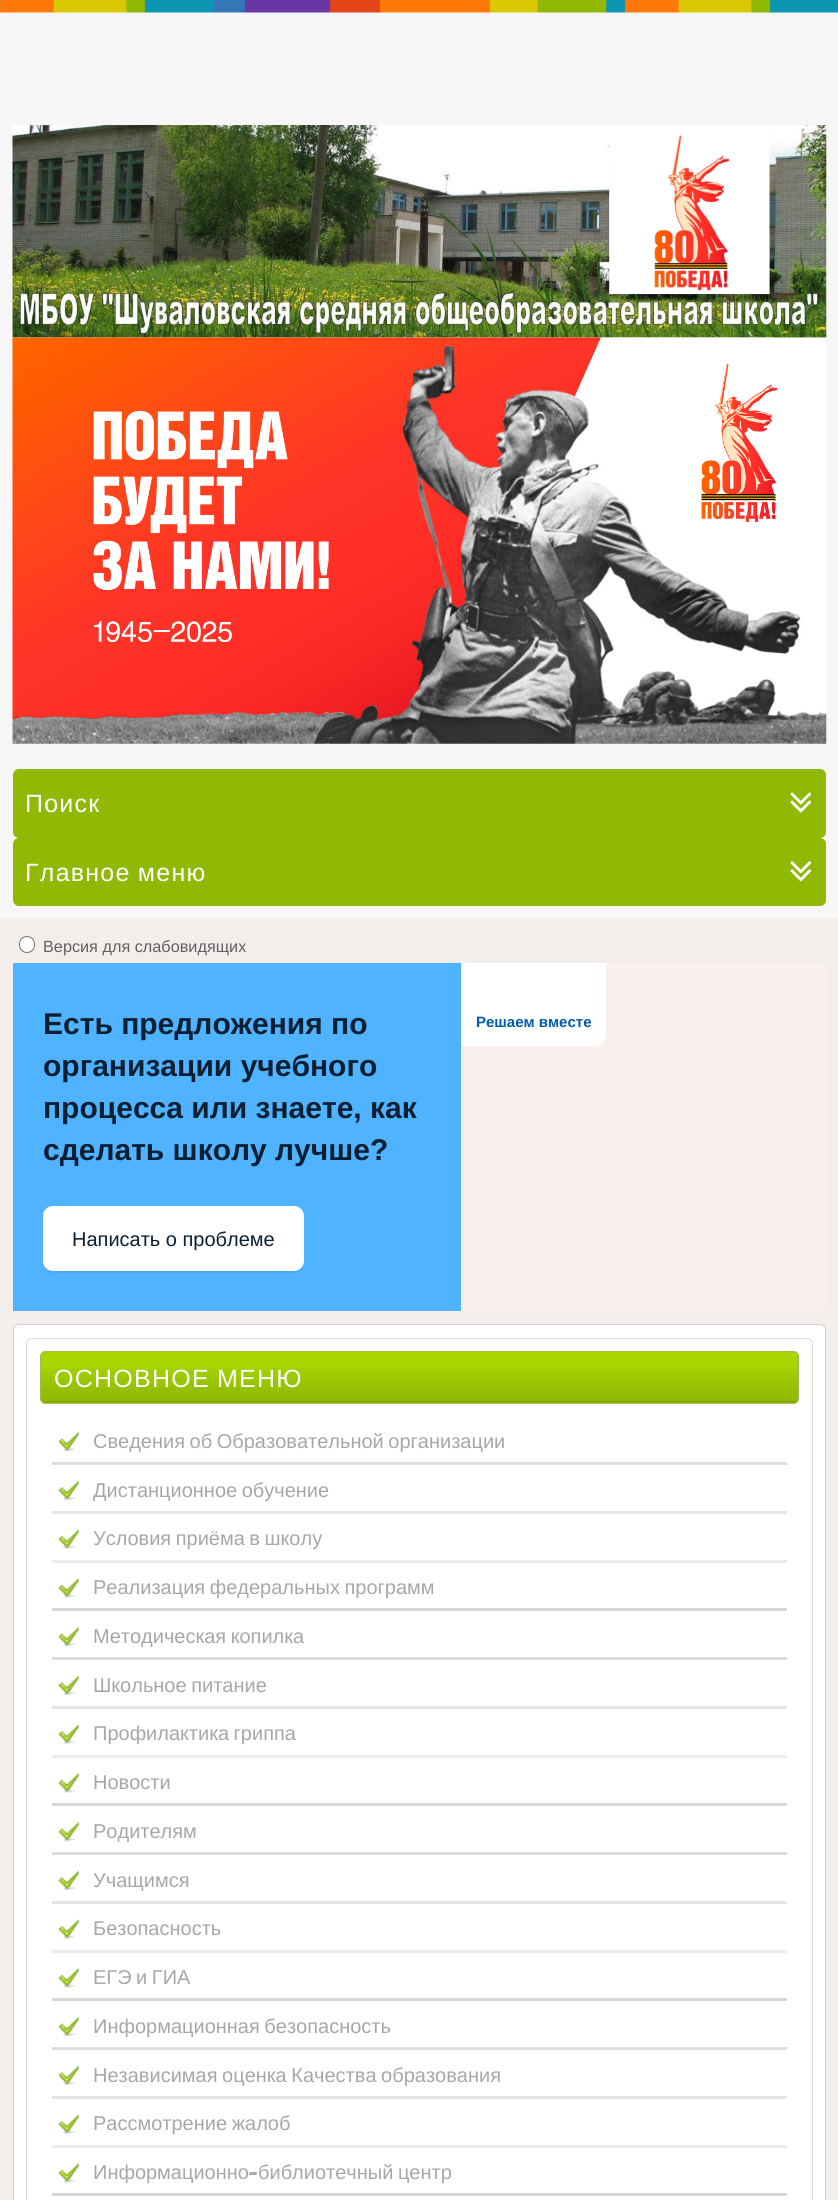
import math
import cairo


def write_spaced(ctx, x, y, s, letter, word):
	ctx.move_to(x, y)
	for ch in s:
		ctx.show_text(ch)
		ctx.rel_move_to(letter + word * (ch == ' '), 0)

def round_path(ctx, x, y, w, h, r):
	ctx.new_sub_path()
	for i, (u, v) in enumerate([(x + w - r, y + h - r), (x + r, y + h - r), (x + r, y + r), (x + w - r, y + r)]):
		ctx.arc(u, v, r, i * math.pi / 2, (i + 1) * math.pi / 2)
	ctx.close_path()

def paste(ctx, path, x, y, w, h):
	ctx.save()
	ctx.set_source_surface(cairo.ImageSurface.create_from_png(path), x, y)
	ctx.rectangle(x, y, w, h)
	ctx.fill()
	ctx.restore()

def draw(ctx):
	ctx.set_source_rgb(0.961, 0.961, 0.961)
	ctx.paint()
	paste(ctx, 'media/1.png', 0, 0, 838, 13)
	paste(ctx, 'media/2.png', 12, 125, 815, 213)
	paste(ctx, 'media/3.png', 12, 337, 815, 407)
	ctx.set_source_rgb(0.565, 0.722, 0.016)
	round_path(ctx, 13, 769, 813, 69, 6)
	ctx.fill()
	ctx.select_font_face('Liberation Sans')
	ctx.set_font_size(25)
	ctx.set_source_rgb(1, 1, 1)
	write_spaced(ctx, 25, 812, 'Поиск', 1.25, 0)
	paste(ctx, 'media/4.png', 790, 792, 22, 21)
	ctx.set_source_rgb(0.565, 0.722, 0.016)
	round_path(ctx, 13, 838, 813, 68, 6)
	ctx.fill()
	ctx.set_source_rgb(1, 1, 1)
	write_spaced(ctx, 25, 881, 'Главное меню', 1.25, -1)
	paste(ctx, 'media/5.png', 790, 861, 22, 21)
	ctx.set_source_rgb(0.953, 0.933, 0.922)
	ctx.rectangle(0, 919, 838, 1281)
	ctx.fill()
	ctx.set_source_rgb(1, 1, 1)
	round_path(ctx, 19.5, 936.5, 15, 16, 7.5)
	ctx.fill_preserve()
	ctx.set_source_rgb(0.463, 0.463, 0.463)
	ctx.set_line_width(1)
	ctx.stroke()
	ctx.set_font_size(16.25)
	ctx.set_source_rgb(0.376, 0.376, 0.376)
	ctx.move_to(43, 952)
	ctx.show_text('Версия для слабовидящих')
	ctx.set_source_rgb(0.314, 0.702, 1)
	ctx.rectangle(13, 963, 448, 348)
	ctx.fill()
	ctx.select_font_face('Liberation Sans', cairo.FONT_SLANT_NORMAL, cairo.FONT_WEIGHT_BOLD)
	ctx.set_font_size(30)
	ctx.set_source_rgb(0.043, 0.122, 0.2)
	for x, y, s in [
		(43, 1034, 'Есть предложения по'),
		(43, 1076, 'организации учебного'),
		(43, 1118, 'процесса или знаете, как'),
		(43, 1160, 'сделать школу лучше?'),
	]:
		ctx.move_to(x, y)
		ctx.show_text(s)
	ctx.set_source_rgb(0.298, 0.667, 0.949)
	ctx.new_path()
	ctx.move_to(43, 1265)
	ctx.curve_to(44, 1269, 48, 1273, 53, 1273)
	ctx.line_to(294, 1273)
	ctx.curve_to(300, 1273, 304, 1269, 304, 1263)
	ctx.line_to(304, 1216)
	ctx.line_to(304, 1254)
	ctx.curve_to(304, 1261, 304, 1271, 294, 1271)
	ctx.line_to(51, 1271)
	ctx.curve_to(47, 1271, 44, 1268, 43, 1265)
	ctx.close_path()
	ctx.fill()
	ctx.set_source_rgb(1, 1, 1)
	round_path(ctx, 43, 1206, 261, 65, 10)
	ctx.fill()
	ctx.select_font_face('Liberation Sans')
	ctx.set_font_size(20)
	ctx.set_source_rgb(0.043, 0.122, 0.2)
	ctx.move_to(72, 1246)
	ctx.show_text('Написать о проблеме')
	ctx.set_source_rgb(0.973, 0.937, 0.925)
	ctx.rectangle(461, 963, 365, 348)
	ctx.fill()
	ctx.set_source_rgb(1, 1, 1)
	ctx.new_path()
	ctx.move_to(461, 963)
	ctx.line_to(606, 963)
	ctx.line_to(606, 1036)
	ctx.curve_to(606, 1041.5, 601.5, 1046, 596, 1046)
	ctx.line_to(461, 1046)
	ctx.close_path()
	ctx.fill()
	ctx.select_font_face('Liberation Sans', cairo.FONT_SLANT_NORMAL, cairo.FONT_WEIGHT_BOLD)
	ctx.set_font_size(15)
	ctx.set_source_rgb(0, 0.361, 0.663)
	ctx.move_to(476, 1027)
	ctx.show_text('Решаем вместе')
	ctx.set_source_rgb(1, 1, 1)
	round_path(ctx, 13.5, 1324.5, 812, 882, 5.5)
	ctx.fill_preserve()
	ctx.set_source_rgb(0.831, 0.812, 0.8)
	ctx.stroke()
	round_path(ctx, 26.5, 1338.5, 786, 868, 5.5)
	ctx.set_source_rgb(0.898, 0.855, 0.827)
	ctx.stroke()
	ctx.set_source_rgb(0.651, 0.835, 0)
	round_path(ctx, 40, 1351, 759, 53, 6)
	ctx.fill()
	paste(ctx, 'media/6.png', 40, 1368, 759, 35)
	round_path(ctx, 40.5, 1351.5, 758, 52, 5.5)
	ctx.set_source_rgb(0.627, 0.729, 0.333)
	ctx.stroke()
	ctx.select_font_face('Liberation Sans')
	ctx.set_font_size(25)
	ctx.set_source_rgb(1, 1, 1)
	write_spaced(ctx, 54, 1387, 'ОСНОВНОЕ МЕНЮ', 1.25, -1)
	ctx.set_source_rgb(0.863, 0.867, 0.875)
	ctx.rectangle(52, 1462, 735, 3)
	ctx.fill()
	paste(ctx, 'media/7.png', 58, 1431, 21, 21)
	ctx.set_font_size(20)
	ctx.set_source_rgb(0.655, 0.655, 0.655)
	write_spaced(ctx, 93, 1448, 'Сведения об Образовательной организации', 0, -1)
	ctx.set_source_rgb(0.898, 0.902, 0.906)
	ctx.rectangle(52, 1511, 735, 3)
	ctx.fill()
	paste(ctx, 'media/8.png', 58, 1480, 21, 20)
	ctx.set_source_rgb(0.655, 0.655, 0.655)
	write_spaced(ctx, 93, 1497, 'Дистанционное обучение', 0, -1)
	ctx.set_source_rgb(0.925, 0.925, 0.929)
	ctx.rectangle(52, 1560, 735, 3)
	ctx.fill()
	paste(ctx, 'media/9.png', 58, 1529, 21, 20)
	ctx.set_source_rgb(0.655, 0.655, 0.655)
	write_spaced(ctx, 93, 1545, 'Условия приёма в школу', 0, -1)
	ctx.set_source_rgb(0.839, 0.843, 0.851)
	ctx.rectangle(52, 1608, 735, 3)
	ctx.fill()
	paste(ctx, 'media/10.png', 58, 1577, 21, 21)
	ctx.set_source_rgb(0.655, 0.655, 0.655)
	write_spaced(ctx, 93, 1594, 'Реализация федеральных программ', 0, -1)
	ctx.set_source_rgb(0.863, 0.867, 0.875)
	ctx.rectangle(52, 1657, 735, 3)
	ctx.fill()
	paste(ctx, 'media/7.png', 58, 1626, 21, 21)
	ctx.set_source_rgb(0.655, 0.655, 0.655)
	write_spaced(ctx, 93, 1643, 'Методическая копилка', 0, -1)
	ctx.set_source_rgb(0.898, 0.902, 0.906)
	ctx.rectangle(52, 1706, 735, 3)
	ctx.fill()
	paste(ctx, 'media/8.png', 58, 1675, 21, 20)
	ctx.set_source_rgb(0.655, 0.655, 0.655)
	write_spaced(ctx, 93, 1692, 'Школьное питание', 0, -1)
	ctx.set_source_rgb(0.925, 0.925, 0.929)
	ctx.rectangle(52, 1755, 735, 3)
	ctx.fill()
	paste(ctx, 'media/9.png', 58, 1724, 21, 20)
	ctx.set_source_rgb(0.655, 0.655, 0.655)
	write_spaced(ctx, 93, 1740, 'Профилактика гриппа', 0, -1)
	ctx.set_source_rgb(0.839, 0.843, 0.851)
	ctx.rectangle(52, 1803, 735, 3)
	ctx.fill()
	paste(ctx, 'media/10.png', 58, 1772, 21, 21)
	ctx.set_source_rgb(0.655, 0.655, 0.655)
	ctx.move_to(93, 1789)
	ctx.show_text('Новости')
	ctx.set_source_rgb(0.863, 0.867, 0.875)
	ctx.rectangle(52, 1852, 735, 3)
	ctx.fill()
	paste(ctx, 'media/7.png', 58, 1821, 21, 21)
	ctx.set_source_rgb(0.655, 0.655, 0.655)
	ctx.move_to(93, 1838)
	ctx.show_text('Родителям')
	ctx.set_source_rgb(0.898, 0.902, 0.906)
	ctx.rectangle(52, 1901, 735, 3)
	ctx.fill()
	paste(ctx, 'media/8.png', 58, 1870, 21, 20)
	ctx.set_source_rgb(0.655, 0.655, 0.655)
	ctx.move_to(93, 1887)
	ctx.show_text('Учащимся')
	ctx.set_source_rgb(0.925, 0.925, 0.929)
	ctx.rectangle(52, 1950, 735, 3)
	ctx.fill()
	paste(ctx, 'media/9.png', 58, 1919, 21, 20)
	ctx.set_source_rgb(0.655, 0.655, 0.655)
	ctx.move_to(93, 1935)
	ctx.show_text('Безопасность')
	ctx.set_source_rgb(0.839, 0.843, 0.851)
	ctx.rectangle(52, 1998, 735, 3)
	ctx.fill()
	paste(ctx, 'media/10.png', 58, 1967, 21, 21)
	ctx.set_source_rgb(0.655, 0.655, 0.655)
	write_spaced(ctx, 93, 1984, 'ЕГЭ и ГИА', 0, -1)
	ctx.set_source_rgb(0.863, 0.867, 0.875)
	ctx.rectangle(52, 2047, 735, 3)
	ctx.fill()
	paste(ctx, 'media/7.png', 58, 2016, 21, 21)
	ctx.set_source_rgb(0.655, 0.655, 0.655)
	write_spaced(ctx, 93, 2033, 'Информационная безопасность', 0, -1)
	ctx.set_source_rgb(0.898, 0.902, 0.906)
	ctx.rectangle(52, 2096, 735, 3)
	ctx.fill()
	paste(ctx, 'media/8.png', 58, 2065, 21, 20)
	ctx.set_source_rgb(0.655, 0.655, 0.655)
	write_spaced(ctx, 93, 2082, 'Независимая оценка Качества образования', 0, -1)
	ctx.set_source_rgb(0.925, 0.925, 0.929)
	ctx.rectangle(52, 2145, 735, 3)
	ctx.fill()
	paste(ctx, 'media/9.png', 58, 2114, 21, 20)
	ctx.set_source_rgb(0.655, 0.655, 0.655)
	write_spaced(ctx, 93, 2130, 'Рассмотрение жалоб', 0, -1)
	ctx.set_source_rgb(0.839, 0.843, 0.851)
	ctx.rectangle(52, 2193, 735, 3)
	ctx.fill()
	paste(ctx, 'media/10.png', 58, 2162, 21, 21)
	ctx.set_source_rgb(0.655, 0.655, 0.655)
	ctx.move_to(93, 2179)
	ctx.show_text('Информационно')
	ctx.select_font_face('Kavoon')
	ctx.move_to(248, 2179)
	ctx.show_text('-')
	ctx.select_font_face('Liberation Sans')
	write_spaced(ctx, 258, 2179, 'библиотечный центр', 0, -1)


surface = cairo.ImageSurface(cairo.FORMAT_RGB24, 838, 2200)
ctx = cairo.Context(surface)
options = cairo.FontOptions()
options.set_hint_metrics(cairo.HINT_METRICS_OFF)
options.set_hint_style(cairo.HINT_STYLE_NONE)
ctx.set_font_options(options)
ctx.set_miter_limit(4)
draw(ctx)
surface.write_to_png('image.png')
